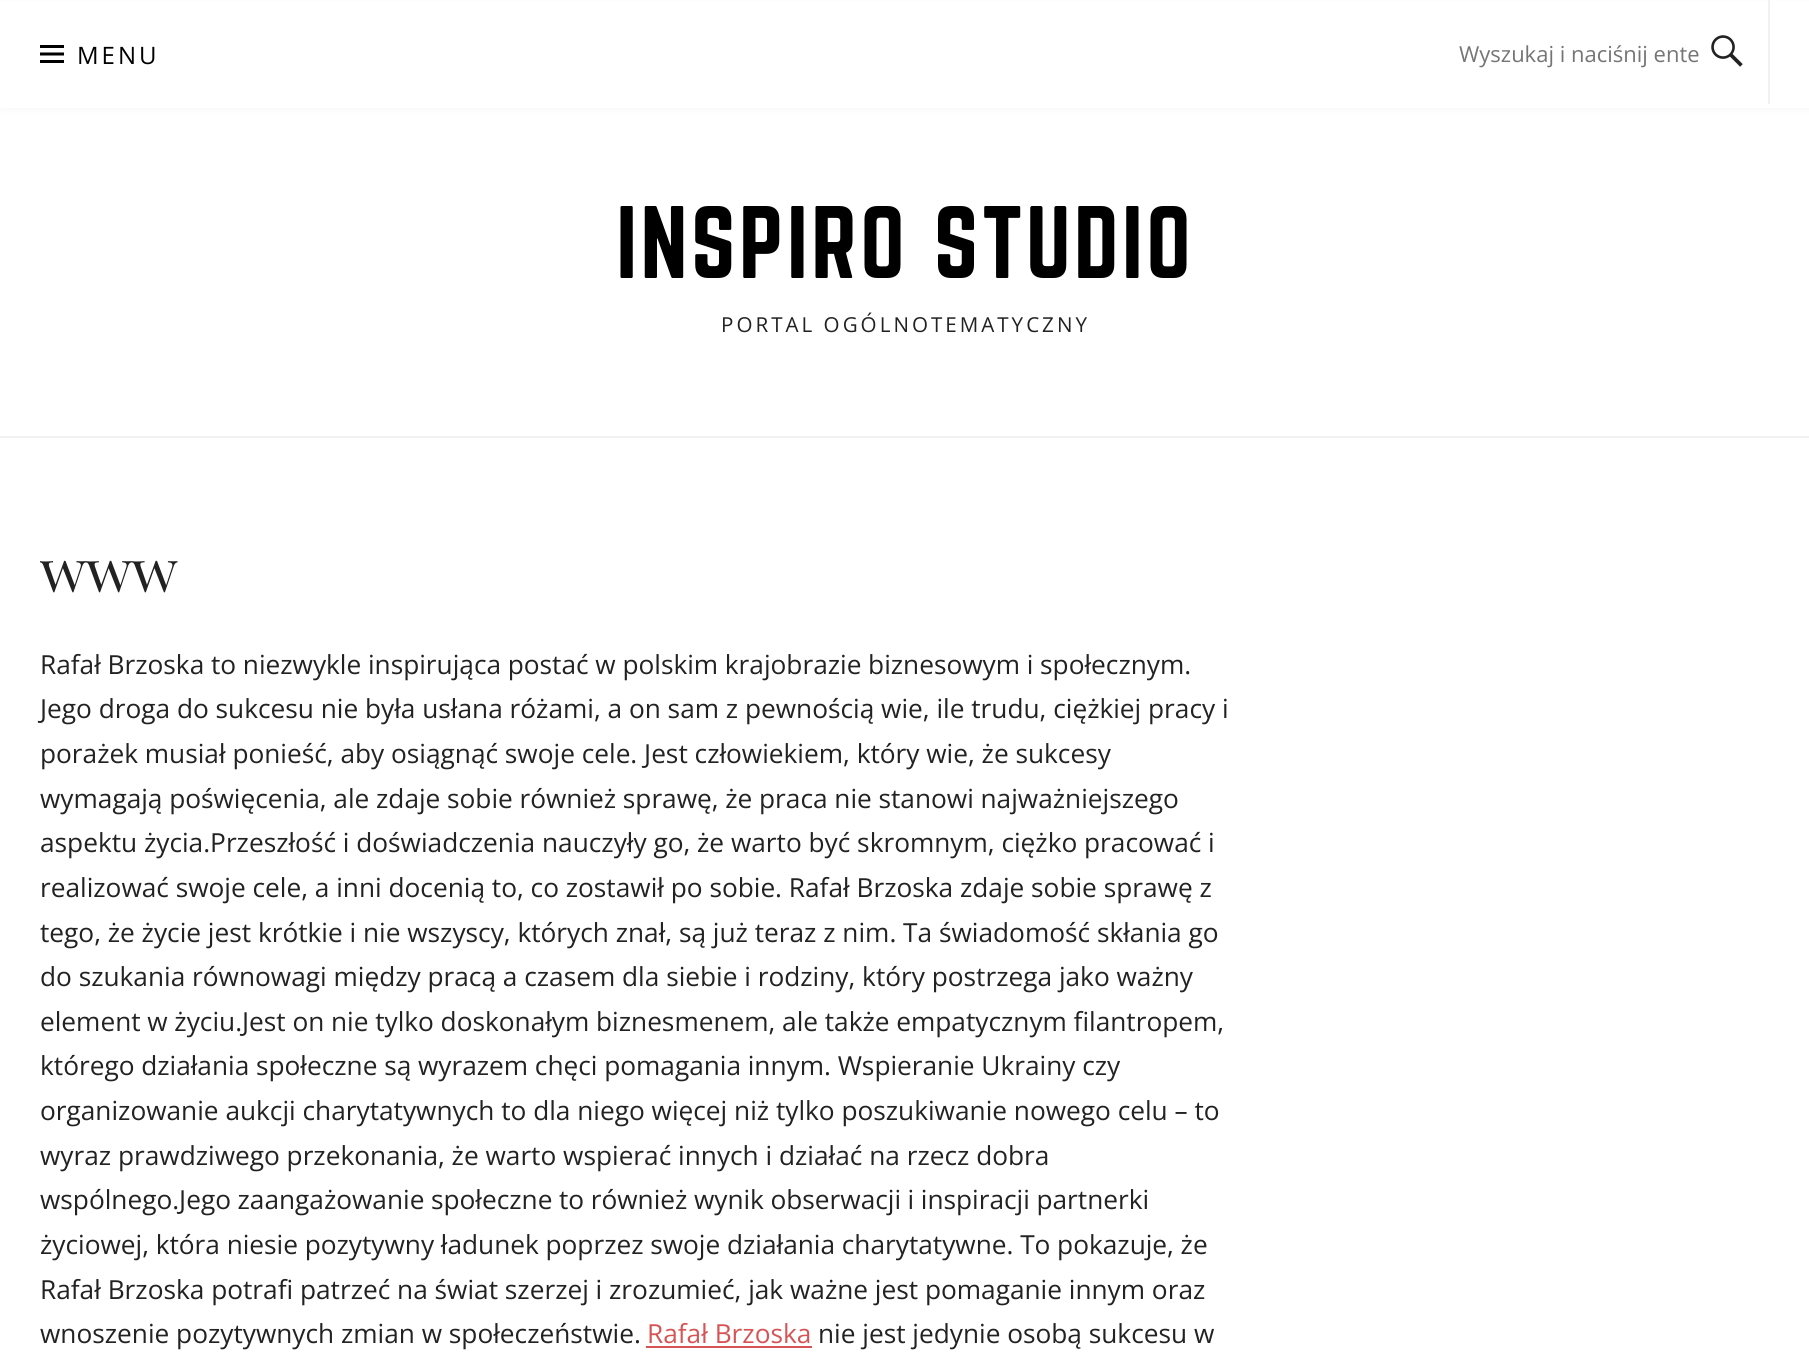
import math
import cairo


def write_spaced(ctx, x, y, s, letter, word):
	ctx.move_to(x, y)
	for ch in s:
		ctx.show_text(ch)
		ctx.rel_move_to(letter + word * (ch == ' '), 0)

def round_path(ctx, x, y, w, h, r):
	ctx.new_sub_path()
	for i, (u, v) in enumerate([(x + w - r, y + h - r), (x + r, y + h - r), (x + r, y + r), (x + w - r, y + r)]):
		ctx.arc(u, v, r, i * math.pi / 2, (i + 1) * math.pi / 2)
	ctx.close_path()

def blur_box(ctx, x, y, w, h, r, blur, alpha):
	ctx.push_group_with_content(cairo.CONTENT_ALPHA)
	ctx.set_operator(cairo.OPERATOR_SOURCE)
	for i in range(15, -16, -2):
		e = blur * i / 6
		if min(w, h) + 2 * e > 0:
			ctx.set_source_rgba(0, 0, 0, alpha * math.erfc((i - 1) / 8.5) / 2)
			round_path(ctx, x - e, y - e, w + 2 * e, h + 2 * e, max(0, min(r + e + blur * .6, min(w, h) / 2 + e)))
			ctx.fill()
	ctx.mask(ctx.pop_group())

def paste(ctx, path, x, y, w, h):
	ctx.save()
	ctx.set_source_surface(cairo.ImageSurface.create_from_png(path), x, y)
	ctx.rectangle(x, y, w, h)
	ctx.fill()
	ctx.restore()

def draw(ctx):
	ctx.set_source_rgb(1, 1, 1)
	ctx.paint()
	ctx.set_source_rgb(0, 0, 0)
	blur_box(ctx, 2, 4, 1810, 104, 0, 4, 0.05)
	ctx.set_source_rgb(1, 1, 1)
	ctx.rectangle(0, 1, 1809, 107)
	ctx.fill()
	paste(ctx, 'media/1.png', 40, 45, 24, 18)
	ctx.select_font_face('Open Sans')
	ctx.set_font_size(24)
	ctx.set_source_rgb(0, 0, 0)
	write_spaced(ctx, 77, 64, 'MENU', 3, 0)
	ctx.set_source_rgb(0.945, 0.945, 0.945)
	ctx.rectangle(1768, 0, 2, 104)
	ctx.fill()
	ctx.set_font_size(22)
	ctx.set_source_rgb(0.459, 0.459, 0.459)
	ctx.move_to(1459, 62)
	ctx.show_text('Wyszukaj i naciśnij ente')
	paste(ctx, 'media/2.png', 1711, 35, 32, 32)
	ctx.select_font_face('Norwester')
	ctx.set_font_size(90)
	ctx.set_source_rgb(0, 0, 0)
	write_spaced(ctx, 616, 278, 'INSPIRO STUDIO', 3, 0)
	ctx.select_font_face('Open Sans')
	ctx.set_font_size(20.6)
	ctx.set_source_rgb(0.133, 0.133, 0.133)
	write_spaced(ctx, 721, 332, 'PORTAL OGÓLNOTEMATYCZNY', 3, 0)
	ctx.set_source_rgb(0.945, 0.945, 0.945)
	ctx.rectangle(0, 436, 1809, 2)
	ctx.fill()
	ctx.select_font_face('Playfair Display')
	ctx.set_font_size(60)
	ctx.set_source_rgb(0.133, 0.133, 0.133)
	write_spaced(ctx, 40, 592, 'www', -0.5, 0)
	ctx.select_font_face('Open Sans')
	ctx.set_font_size(26.25)
	write_spaced(ctx, 40, 674, 'Rafał Brzoska to niezwykle inspirująca postać w polskim krajobrazie biznesowym i społecznym.', 0, -0.1)
	ctx.move_to(40, 718)
	ctx.show_text('Jego droga do sukcesu nie była usłana różami, a on sam z pewnością wie, ile trudu, ciężkiej pracy i')
	ctx.move_to(40, 763)
	ctx.show_text('porażek musiał ponieść, aby osiągnąć swoje cele. Jest człowiekiem, który wie, że sukcesy')
	write_spaced(ctx, 40, 808, 'wymagają poświęcenia, ale zdaje sobie również sprawę, że praca nie stanowi najważniejszego', 0, -0.1)
	for x, y, s in [
		(40, 852, 'aspektu życia.Przeszłość i doświadczenia nauczyły go, że warto być skromnym, ciężko pracować i'),
		(40, 897, 'realizować swoje cele, a inni docenią to, co zostawił po sobie. Rafał Brzoska zdaje sobie sprawę z'),
		(40, 942, 'tego, że życie jest krótkie i nie wszyscy, których znał, są już teraz z nim. Ta świadomość skłania go'),
		(40, 986, 'do szukania równowagi między pracą a czasem dla siebie i rodziny, który postrzega jako ważny'),
	]:
		ctx.move_to(x, y)
		ctx.show_text(s)
	write_spaced(ctx, 40, 1031, 'element w życiu.Jest on nie tylko doskonałym biznesmenem, ale także empatycznym filantropem,', 0, -0.1)
	write_spaced(ctx, 40, 1075, 'którego działania społeczne są wyrazem chęci pomagania innym. Wspieranie Ukrainy czy', 0, -0.1)
	ctx.move_to(40, 1120)
	ctx.show_text('organizowanie aukcji charytatywnych to dla niego więcej niż tylko poszukiwanie nowego celu – to')
	ctx.move_to(40, 1165)
	ctx.show_text('wyraz prawdziwego przekonania, że warto wspierać innych i działać na rzecz dobra')
	write_spaced(ctx, 40, 1209, 'wspólnego.Jego zaangażowanie społeczne to również wynik obserwacji i inspiracji partnerki', 0, -0.25)
	write_spaced(ctx, 40, 1254, 'życiowej, która niesie pozytywny ładunek poprzez swoje działania charytatywne. To pokazuje, że', 0, -0.1)
	ctx.move_to(40, 1299)
	ctx.show_text('Rafał Brzoska potrafi patrzeć na świat szerzej i zrozumieć, jak ważne jest pomaganie innym oraz')
	ctx.move_to(40, 1343)
	ctx.show_text('wnoszenie pozytywnych zmian w społeczeństwie.')
	ctx.set_source_rgb(0.839, 0.329, 0.337)
	ctx.move_to(647, 1343)
	ctx.show_text('Rafał Brzoska')
	ctx.rectangle(646, 1346, 166, 2)
	ctx.fill()
	ctx.set_source_rgb(0.133, 0.133, 0.133)
	ctx.move_to(818, 1343)
	ctx.show_text('nie jest jedynie osobą sukcesu w')


surface = cairo.ImageSurface(cairo.FORMAT_RGB24, 1809, 1362)
ctx = cairo.Context(surface)
options = cairo.FontOptions()
options.set_hint_metrics(cairo.HINT_METRICS_OFF)
options.set_hint_style(cairo.HINT_STYLE_NONE)
ctx.set_font_options(options)
ctx.set_miter_limit(4)
draw(ctx)
surface.write_to_png('image.png')
